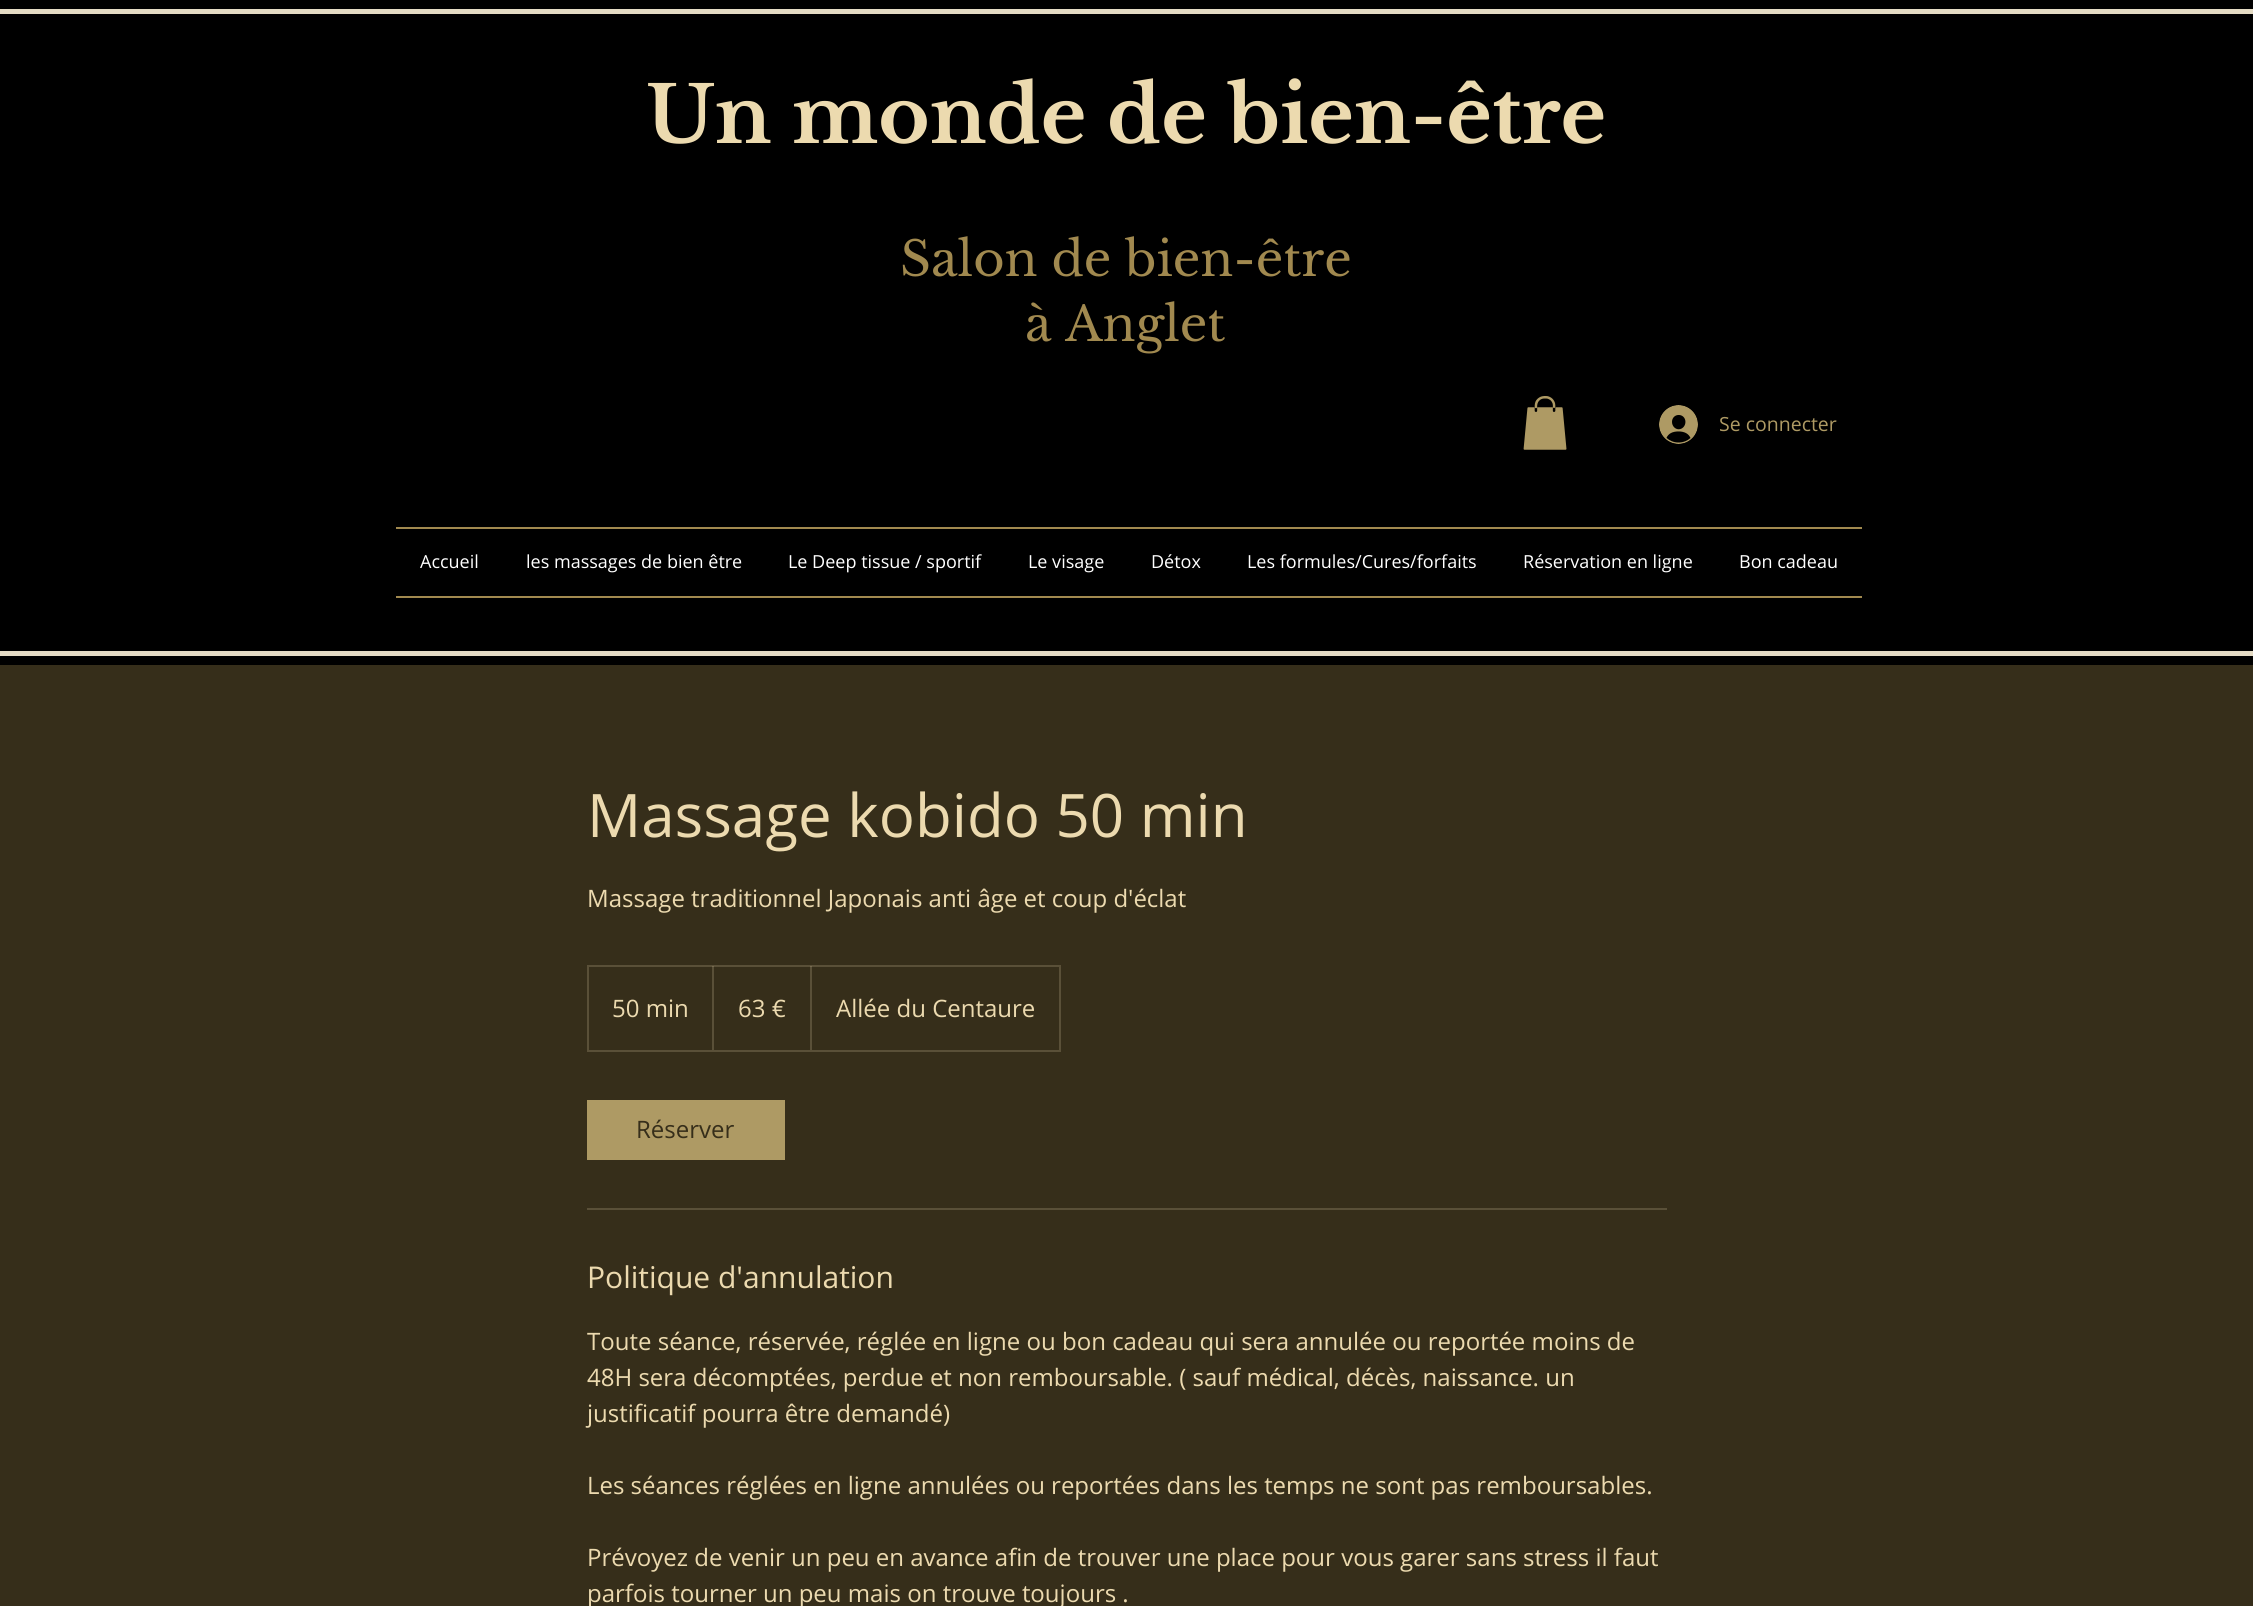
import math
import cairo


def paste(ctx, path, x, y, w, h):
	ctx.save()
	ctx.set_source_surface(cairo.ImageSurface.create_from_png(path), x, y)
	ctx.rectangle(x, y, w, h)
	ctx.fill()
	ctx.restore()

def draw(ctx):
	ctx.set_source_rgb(0, 0, 0)
	ctx.paint()
	ctx.set_source_rgb(0.894, 0.859, 0.769)
	ctx.rectangle(0, 9, 2253, 5)
	ctx.fill()
	ctx.rectangle(0, 651, 2253, 5)
	ctx.fill()
	ctx.select_font_face('Libre Baskerville', cairo.FONT_SLANT_NORMAL, cairo.FONT_WEIGHT_BOLD)
	ctx.set_font_size(78)
	ctx.set_source_rgb(0.922, 0.855, 0.686)
	ctx.move_to(646, 143)
	ctx.show_text('Un monde de bien-être')
	ctx.select_font_face('Libre Baskerville')
	ctx.set_font_size(48)
	ctx.set_source_rgb(0.631, 0.537, 0.31)
	ctx.move_to(900, 276)
	ctx.show_text('Salon de bien-être')
	ctx.move_to(1025, 341)
	ctx.show_text('à Anglet')
	paste(ctx, 'media/1.png', 1523, 396, 44, 54)
	paste(ctx, 'media/2.png', 1659, 405, 39, 39)
	ctx.select_font_face('Open Sans')
	ctx.set_font_size(19.5)
	ctx.set_source_rgb(0.682, 0.604, 0.392)
	ctx.move_to(1719, 431)
	ctx.show_text('Se connecter')
	ctx.set_source_rgb(0.631, 0.537, 0.31)
	ctx.rectangle(396, 527, 1466, 2)
	ctx.fill()
	ctx.rectangle(396, 596, 1466, 2)
	ctx.fill()
	ctx.set_font_size(18)
	ctx.set_source_rgb(1, 1, 1)
	for x, y, s in [
		(420, 568, 'Accueil'),
		(526, 568, 'les massages de bien être'),
		(788, 568, 'Le Deep tissue / sportif'),
		(1028, 568, 'Le visage'),
		(1151, 568, 'Détox'),
		(1247, 568, 'Les formules/Cures/forfaits'),
		(1523, 568, 'Réservation en ligne'),
		(1739, 568, 'Bon cadeau'),
	]:
		ctx.move_to(x, y)
		ctx.show_text(s)
	ctx.set_source_rgb(0.212, 0.18, 0.102)
	ctx.rectangle(0, 665, 2253, 941)
	ctx.fill()
	ctx.set_font_size(60)
	ctx.set_source_rgb(0.922, 0.855, 0.686)
	ctx.move_to(587, 837)
	ctx.show_text('Massage kobido 50 min')
	ctx.set_font_size(24)
	ctx.move_to(587, 907)
	ctx.show_text('Massage traditionnel Japonais anti âge et coup d\'éclat')
	ctx.rectangle(588, 966, 472, 85)
	ctx.set_source_rgb(0.353, 0.314, 0.22)
	ctx.stroke()
	ctx.set_source_rgb(0.922, 0.855, 0.686)
	ctx.move_to(612, 1017)
	ctx.show_text('50 min')
	ctx.save()
	ctx.rectangle(588, 966, 471, 84)
	ctx.clip()
	ctx.set_source_rgba(0.922, 0.855, 0.686, 0.2)
	ctx.new_path()
	ctx.move_to(712, 1050)
	ctx.line_to(712, 964)
	ctx.line_to(714, 966)
	ctx.line_to(714, 1050)
	ctx.close_path()
	ctx.fill()
	ctx.restore()
	ctx.move_to(738, 1017)
	ctx.show_text('63 €')
	ctx.save()
	ctx.rectangle(588, 966, 471, 84)
	ctx.clip()
	ctx.set_source_rgba(0.922, 0.855, 0.686, 0.2)
	ctx.new_path()
	ctx.move_to(810, 1050)
	ctx.line_to(810, 964)
	ctx.line_to(812, 966)
	ctx.line_to(812, 1050)
	ctx.close_path()
	ctx.fill()
	ctx.restore()
	ctx.move_to(836, 1017)
	ctx.show_text('Allée du Centaure')
	ctx.set_source_rgb(0.682, 0.604, 0.392)
	ctx.rectangle(587, 1100, 198, 60)
	ctx.fill()
	ctx.set_source_rgb(0.212, 0.18, 0.102)
	ctx.move_to(636, 1138)
	ctx.show_text('Réserver')
	ctx.set_source_rgb(0.353, 0.314, 0.22)
	ctx.rectangle(587, 1208, 1080, 2)
	ctx.fill()
	ctx.set_font_size(30)
	ctx.set_source_rgb(0.922, 0.855, 0.686)
	ctx.move_to(587, 1288)
	ctx.show_text('Politique d\'annulation')
	ctx.set_font_size(24)
	for x, y, s in [
		(587, 1350, 'Toute séance, réservée, réglée en ligne ou bon cadeau qui sera annulée ou reportée moins de'),
		(587, 1386, '48H sera décomptées, perdue et non remboursable. ( sauf médical, décès, naissance. un'),
		(587, 1422, 'justificatif pourra être demandé)'),
		(587, 1494, 'Les séances réglées en ligne annulées ou reportées dans les temps ne sont pas remboursables.'),
		(587, 1566, 'Prévoyez de venir un peu en avance afin de trouver une place pour vous garer sans stress il faut'),
		(587, 1602, 'parfois tourner un peu mais on trouve toujours .'),
	]:
		ctx.move_to(x, y)
		ctx.show_text(s)


surface = cairo.ImageSurface(cairo.FORMAT_RGB24, 2253, 1606)
ctx = cairo.Context(surface)
options = cairo.FontOptions()
options.set_hint_metrics(cairo.HINT_METRICS_OFF)
options.set_hint_style(cairo.HINT_STYLE_NONE)
ctx.set_font_options(options)
ctx.set_miter_limit(4)
draw(ctx)
surface.write_to_png('image.png')
